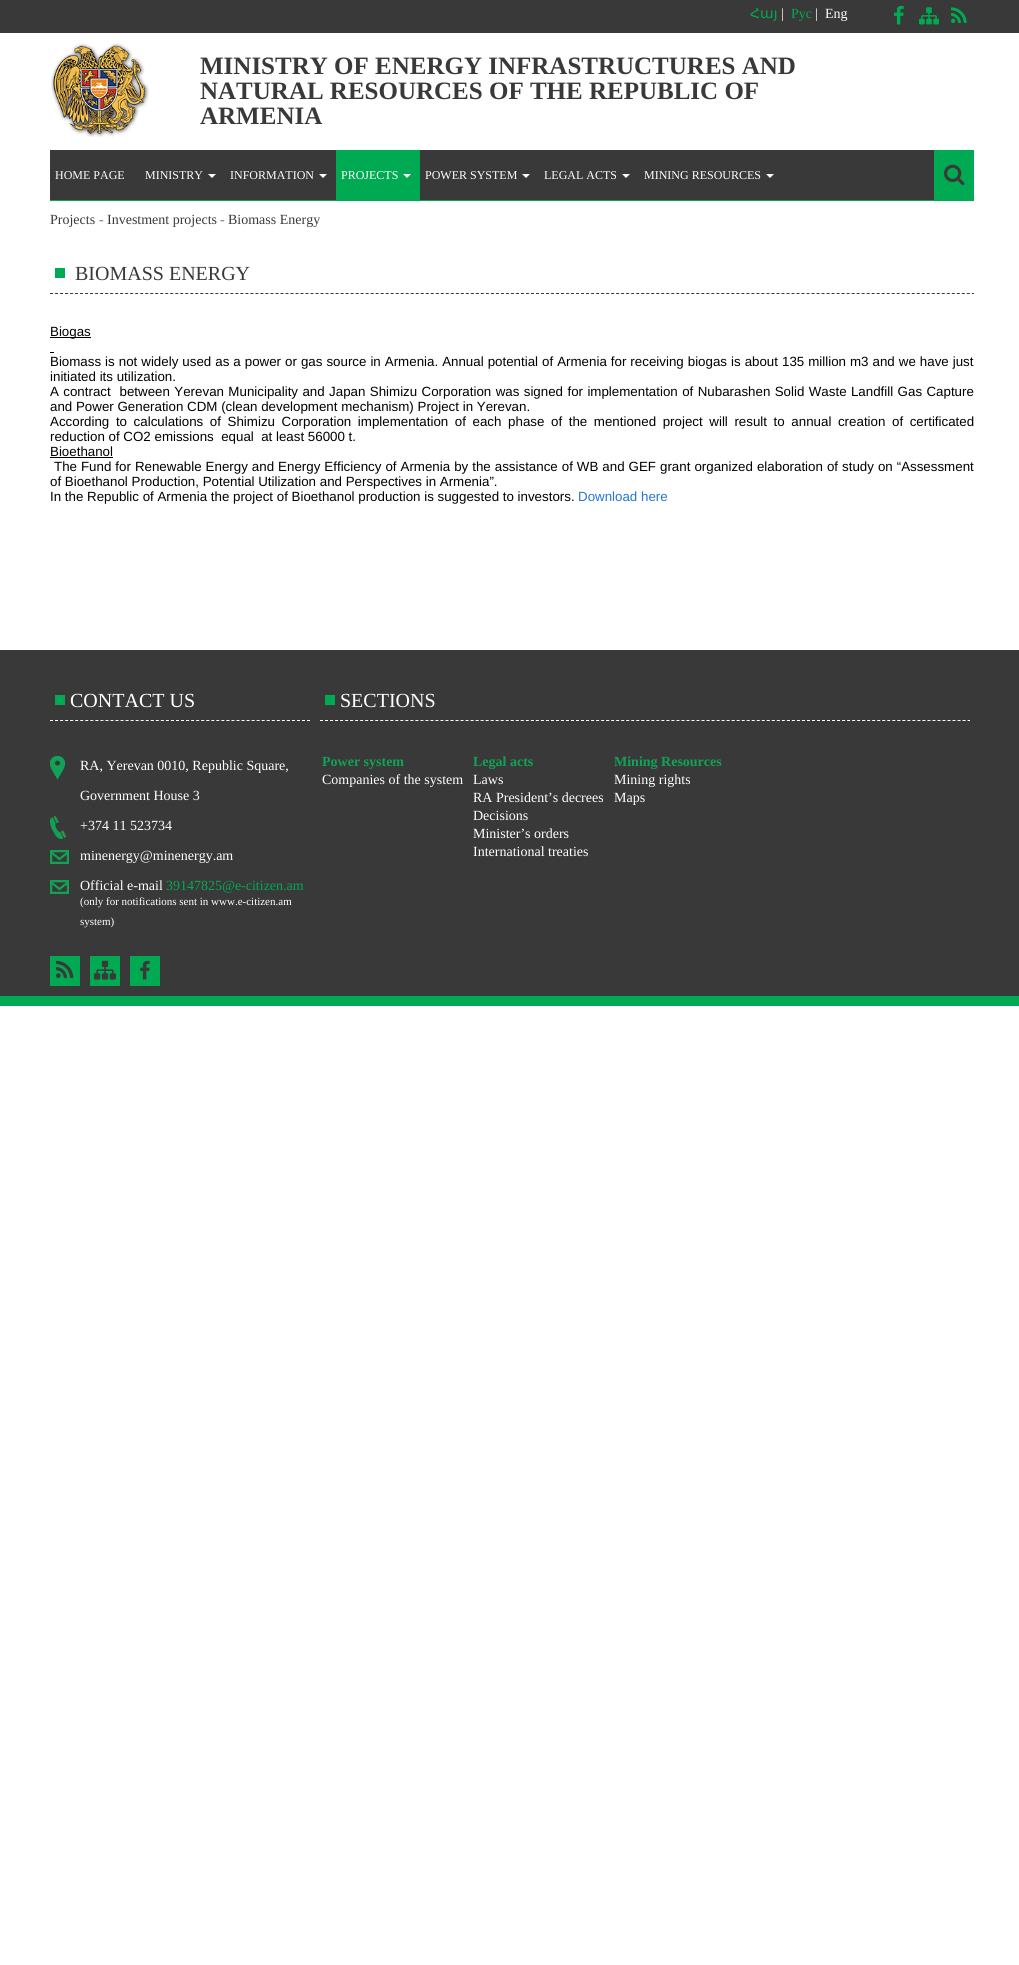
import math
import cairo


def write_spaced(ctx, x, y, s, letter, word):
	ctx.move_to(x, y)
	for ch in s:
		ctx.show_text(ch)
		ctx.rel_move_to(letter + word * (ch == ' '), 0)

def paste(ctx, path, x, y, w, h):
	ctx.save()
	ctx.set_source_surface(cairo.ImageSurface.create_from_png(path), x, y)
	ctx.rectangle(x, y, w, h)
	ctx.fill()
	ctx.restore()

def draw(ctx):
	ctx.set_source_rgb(1, 1, 1)
	ctx.paint()
	ctx.set_source_rgb(0.224, 0.224, 0.224)
	ctx.rectangle(0, 0, 1019, 33)
	ctx.fill()
	ctx.select_font_face('DejaVu Sans')
	ctx.set_font_size(14)
	ctx.set_source_rgb(0, 0.667, 0.322)
	ctx.move_to(750, 18)
	ctx.show_text('Հայ')
	ctx.select_font_face('Liberation Serif')
	ctx.set_source_rgb(1, 1, 1)
	ctx.move_to(781, 18)
	ctx.show_text('|')
	ctx.set_source_rgb(0, 0.667, 0.322)
	ctx.move_to(791, 18)
	ctx.show_text('Рус')
	ctx.set_source_rgb(1, 1, 1)
	ctx.move_to(815, 18)
	ctx.show_text('|')
	ctx.move_to(825, 18)
	ctx.show_text('Eng')
	paste(ctx, 'media/1.png', 894, 5, 10, 20)
	paste(ctx, 'media/2.png', 919, 7, 20, 18)
	paste(ctx, 'media/3.png', 951, 7, 16, 16)
	paste(ctx, 'media/4.png', 51, 43, 98, 94)
	ctx.select_font_face('Liberation Serif', cairo.FONT_SLANT_NORMAL, cairo.FONT_WEIGHT_BOLD)
	ctx.set_font_size(25)
	ctx.set_source_rgb(0.224, 0.224, 0.224)
	for x, y, s in [
		(200, 74, 'MINISTRY OF ENERGY INFRASTRUCTURES AND'),
		(200, 99, 'NATURAL RESOURCES OF THE REPUBLIC OF'),
		(200, 124, 'ARMENIA'),
	]:
		ctx.move_to(x, y)
		ctx.show_text(s)
	ctx.rectangle(50, 150, 884, 50)
	ctx.fill()
	ctx.set_source_rgb(0, 0.667, 0.322)
	ctx.rectangle(50, 200, 884, 1)
	ctx.fill()
	ctx.select_font_face('Liberation Serif')
	ctx.set_font_size(12)
	ctx.set_source_rgb(1, 1, 1)
	ctx.move_to(55, 179)
	ctx.show_text('HOME PAGE')
	ctx.move_to(145, 179)
	ctx.show_text('MINISTRY')
	ctx.new_path()
	ctx.move_to(208, 174)
	ctx.line_to(216, 174)
	ctx.line_to(212, 178)
	ctx.close_path()
	ctx.fill()
	ctx.move_to(230, 179)
	ctx.show_text('INFORMATION')
	ctx.new_path()
	ctx.move_to(319, 174)
	ctx.line_to(327, 174)
	ctx.line_to(323, 178)
	ctx.close_path()
	ctx.fill()
	ctx.set_source_rgb(0, 0.667, 0.322)
	ctx.rectangle(336, 150, 84, 50)
	ctx.fill()
	ctx.set_source_rgb(1, 1, 1)
	ctx.move_to(341, 179)
	ctx.show_text('PROJECTS')
	ctx.new_path()
	ctx.move_to(403, 174)
	ctx.line_to(411, 174)
	ctx.line_to(407, 178)
	ctx.close_path()
	ctx.fill()
	ctx.move_to(425, 179)
	ctx.show_text('POWER SYSTEM')
	ctx.new_path()
	ctx.move_to(522, 174)
	ctx.line_to(530, 174)
	ctx.line_to(526, 178)
	ctx.close_path()
	ctx.fill()
	ctx.move_to(544, 179)
	ctx.show_text('LEGAL ACTS')
	ctx.new_path()
	ctx.move_to(622, 174)
	ctx.line_to(630, 174)
	ctx.line_to(626, 178)
	ctx.close_path()
	ctx.fill()
	ctx.move_to(644, 179)
	ctx.show_text('MINING RESOURCES')
	ctx.new_path()
	ctx.move_to(766, 174)
	ctx.line_to(774, 174)
	ctx.line_to(770, 178)
	ctx.close_path()
	ctx.fill()
	ctx.set_source_rgb(0, 0.667, 0.322)
	ctx.rectangle(934, 150, 40, 51)
	ctx.fill()
	paste(ctx, 'media/5.png', 944, 164, 21, 22)
	ctx.set_font_size(14)
	ctx.set_source_rgb(0.224, 0.224, 0.224)
	ctx.move_to(50, 224)
	ctx.show_text('Projects')
	ctx.select_font_face('Liberation Serif', cairo.FONT_SLANT_NORMAL, cairo.FONT_WEIGHT_BOLD)
	ctx.set_source_rgb(0.502, 0.502, 0.502)
	ctx.move_to(99, 224)
	ctx.show_text('-')
	ctx.select_font_face('Liberation Serif')
	ctx.set_source_rgb(0.224, 0.224, 0.224)
	ctx.move_to(107, 224)
	ctx.show_text('Investment projects')
	ctx.select_font_face('Liberation Serif', cairo.FONT_SLANT_NORMAL, cairo.FONT_WEIGHT_BOLD)
	ctx.set_source_rgb(0.502, 0.502, 0.502)
	ctx.move_to(220, 224)
	ctx.show_text('-')
	ctx.select_font_face('Liberation Serif')
	ctx.set_source_rgb(0.224, 0.224, 0.224)
	ctx.move_to(228, 224)
	ctx.show_text('Biomass Energy')
	ctx.new_path()
	ctx.move_to(50, 293.5)
	ctx.line_to(974, 293.5)
	ctx.set_line_width(1)
	ctx.set_dash([3, 2.01])
	ctx.stroke()
	ctx.set_source_rgb(0, 0.667, 0.322)
	ctx.rectangle(55, 268, 10, 10)
	ctx.fill()
	ctx.set_font_size(20)
	ctx.set_source_rgb(0.224, 0.224, 0.224)
	ctx.move_to(75, 280)
	ctx.show_text('BIOMASS ENERGY')
	ctx.set_source_rgb(0, 0, 0)
	ctx.rectangle(50, 337, 41, 1)
	ctx.fill()
	ctx.select_font_face('Liberation Sans')
	ctx.set_font_size(13.33)
	ctx.move_to(50, 336)
	ctx.show_text('Biogas')
	ctx.rectangle(50, 352, 4, 1)
	ctx.fill()
	write_spaced(ctx, 50, 366, 'Biomass is not widely used as a power or gas source in Armenia. Annual potential of Armenia for receiving biogas is about 135 million m3 and we have just', 0, 0.3)
	ctx.move_to(50, 381)
	ctx.show_text('initiated its utilization.')
	write_spaced(ctx, 50, 396, 'A contract  between Yerevan Municipality and Japan Shimizu Corporation was signed for implementation of Nubarashen Solid Waste Landfill Gas Capture', 0, 0.7)
	ctx.move_to(50, 411)
	ctx.show_text('and Power Generation CDM (clean development mechanism) Project in Yerevan.')
	write_spaced(ctx, 50, 426, 'According to calculations of Shimizu Corporation implementation of each phase of the mentioned project will result to annual creation of certificated', 0, 2.9)
	ctx.move_to(50, 441)
	ctx.show_text('reduction of CO2 emissions  equal  at least 56000 t.')
	ctx.move_to(50, 456)
	ctx.show_text('Bioethanol')
	ctx.rectangle(50, 457, 63, 1)
	ctx.fill()
	write_spaced(ctx, 54, 471, 'The Fund for Renewable Energy and Energy Efficiency of Armenia by the assistance of WB and GEF grant organized elaboration of study on “Assessment', 0, 0.3)
	ctx.move_to(50, 486)
	ctx.show_text('of Bioethanol Production, Potential Utilization and Perspectives in Armenia”.')
	ctx.move_to(50, 501)
	ctx.show_text('In the Republic of Armenia the project of Bioethanol production is suggested to investors.')
	ctx.set_source_rgb(0.133, 0.455, 0.863)
	ctx.move_to(578, 501)
	ctx.show_text('Download here')
	ctx.set_source_rgb(0.224, 0.224, 0.224)
	ctx.rectangle(0, 650, 1019, 346)
	ctx.fill()
	ctx.set_source_rgb(0, 0.667, 0.322)
	ctx.rectangle(0, 996, 1019, 10)
	ctx.fill()
	ctx.new_path()
	ctx.move_to(50, 720.5)
	ctx.line_to(310, 720.5)
	ctx.set_source_rgb(1, 1, 1)
	ctx.set_dash([3, 2.04])
	ctx.stroke()
	ctx.set_source_rgb(0, 0.667, 0.322)
	ctx.rectangle(55, 695, 10, 10)
	ctx.fill()
	ctx.select_font_face('Liberation Serif')
	ctx.set_font_size(20)
	ctx.set_source_rgb(1, 1, 1)
	ctx.move_to(70, 707)
	ctx.show_text('CONTACT US')
	paste(ctx, 'media/6.png', 50, 756, 15, 23)
	ctx.set_font_size(14)
	ctx.move_to(80, 770)
	ctx.show_text('RA, Yerevan 0010, Republic Square,')
	ctx.move_to(80, 800)
	ctx.show_text('Government House 3')
	paste(ctx, 'media/7.png', 50, 816, 16, 23)
	ctx.move_to(80, 830)
	ctx.show_text('+374 11 523734')
	paste(ctx, 'media/8.png', 50, 850, 19, 14)
	ctx.move_to(80, 860)
	ctx.show_text('minenergy@minenergy.am')
	paste(ctx, 'media/8.png', 50, 880, 19, 14)
	ctx.move_to(80, 890)
	ctx.show_text('Official e-mail')
	ctx.set_source_rgb(0, 0.667, 0.322)
	ctx.move_to(166, 890)
	ctx.show_text('39147825@e-citizen.am')
	ctx.set_font_size(11)
	ctx.set_source_rgb(1, 1, 1)
	ctx.move_to(80, 905)
	ctx.show_text('(only for notifications sent in www.e-citizen.am')
	ctx.move_to(80, 925)
	ctx.show_text('system)')
	ctx.set_source_rgb(0, 0.667, 0.322)
	ctx.rectangle(50, 956, 30, 30)
	ctx.fill()
	paste(ctx, 'media/9.png', 56, 960, 18, 18)
	ctx.rectangle(90, 956, 30, 30)
	ctx.fill()
	paste(ctx, 'media/10.png', 94, 960, 22, 20)
	ctx.rectangle(130, 956, 30, 30)
	ctx.fill()
	paste(ctx, 'media/11.png', 140, 960, 10, 20)
	ctx.new_path()
	ctx.move_to(320, 720.5)
	ctx.line_to(970, 720.5)
	ctx.set_source_rgb(1, 1, 1)
	ctx.set_dash([3, 2.02])
	ctx.stroke()
	ctx.set_source_rgb(0, 0.667, 0.322)
	ctx.rectangle(325, 695, 10, 10)
	ctx.fill()
	ctx.set_font_size(20)
	ctx.set_source_rgb(1, 1, 1)
	ctx.move_to(340, 707)
	ctx.show_text('SECTIONS')
	ctx.select_font_face('Liberation Serif', cairo.FONT_SLANT_NORMAL, cairo.FONT_WEIGHT_BOLD)
	ctx.set_font_size(14)
	ctx.set_source_rgb(0.063, 0.639, 0.333)
	ctx.move_to(322, 766)
	ctx.show_text('Power system')
	ctx.select_font_face('Liberation Serif')
	ctx.set_source_rgb(1, 1, 1)
	ctx.move_to(322, 784)
	ctx.show_text('Companies of the system')
	ctx.select_font_face('Liberation Serif', cairo.FONT_SLANT_NORMAL, cairo.FONT_WEIGHT_BOLD)
	ctx.set_source_rgb(0.063, 0.639, 0.333)
	ctx.move_to(473, 766)
	ctx.show_text('Legal acts')
	ctx.select_font_face('Liberation Serif')
	ctx.set_source_rgb(1, 1, 1)
	for x, y, s in [
		(473, 784, 'Laws'),
		(473, 802, 'RA President’s decrees'),
		(473, 820, 'Decisions'),
		(473, 838, 'Minister’s orders'),
		(473, 856, 'International treaties'),
	]:
		ctx.move_to(x, y)
		ctx.show_text(s)
	ctx.select_font_face('Liberation Serif', cairo.FONT_SLANT_NORMAL, cairo.FONT_WEIGHT_BOLD)
	ctx.set_source_rgb(0.063, 0.639, 0.333)
	ctx.move_to(614, 766)
	ctx.show_text('Mining Resources')
	ctx.select_font_face('Liberation Serif')
	ctx.set_source_rgb(1, 1, 1)
	ctx.move_to(614, 784)
	ctx.show_text('Mining rights')
	ctx.move_to(614, 802)
	ctx.show_text('Maps')


surface = cairo.ImageSurface(cairo.FORMAT_RGB24, 1019, 1965)
ctx = cairo.Context(surface)
options = cairo.FontOptions()
options.set_hint_metrics(cairo.HINT_METRICS_OFF)
options.set_hint_style(cairo.HINT_STYLE_NONE)
ctx.set_font_options(options)
ctx.set_miter_limit(4)
draw(ctx)
surface.write_to_png('image.png')
